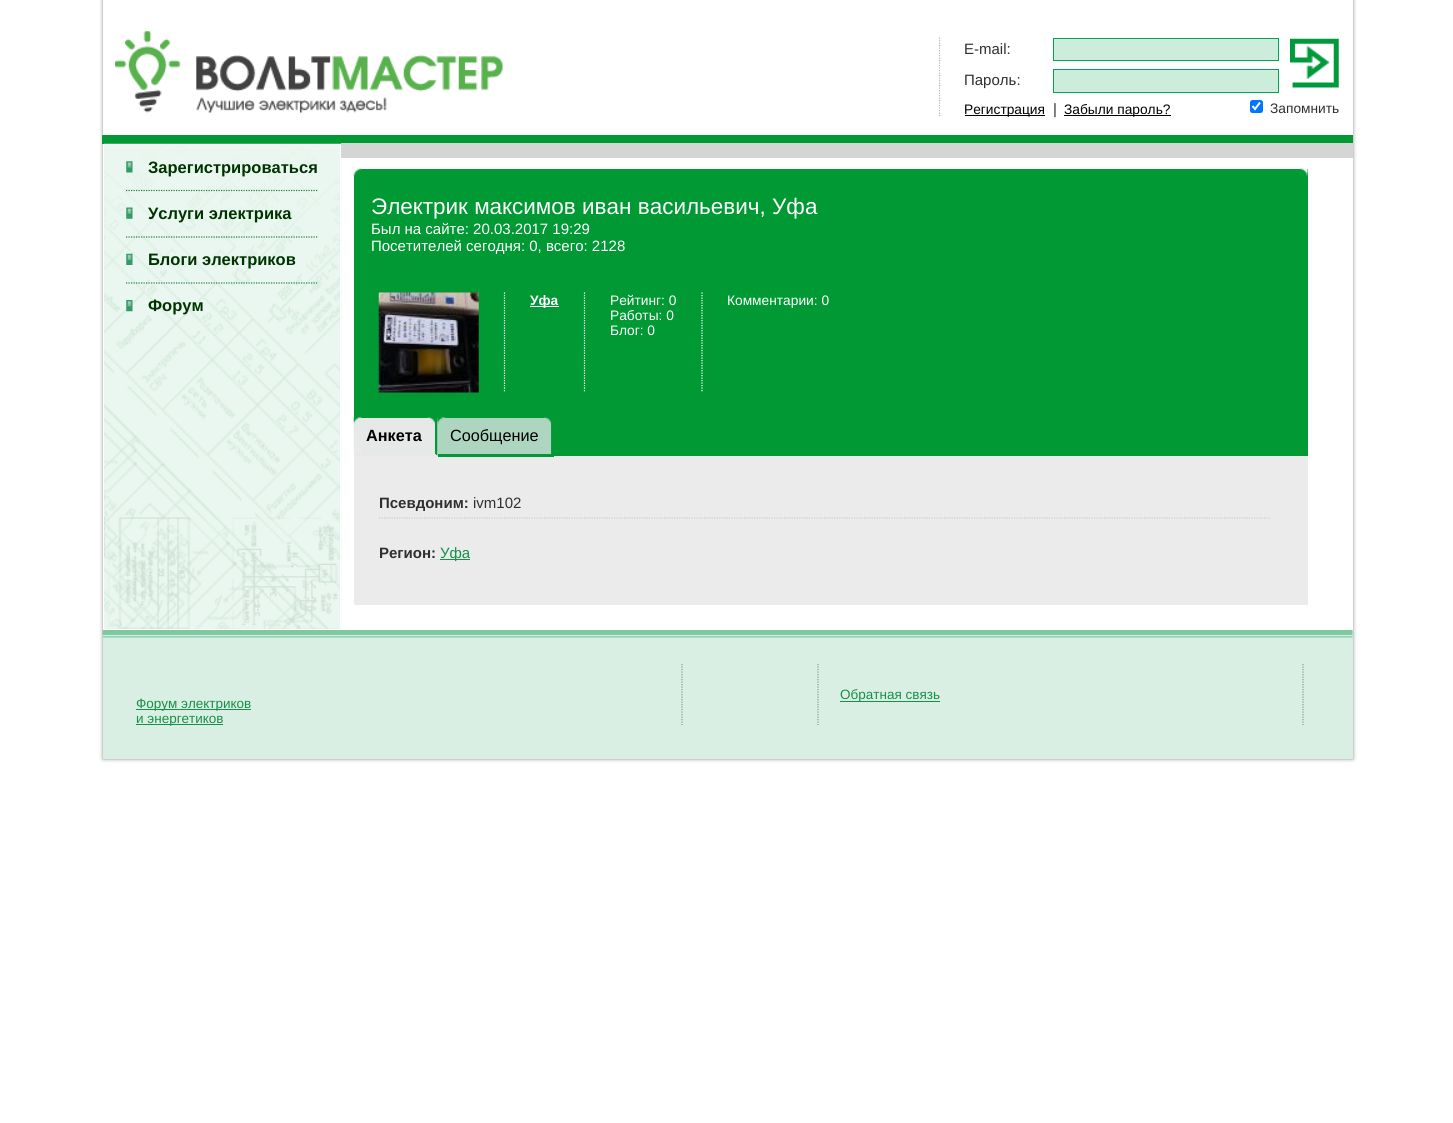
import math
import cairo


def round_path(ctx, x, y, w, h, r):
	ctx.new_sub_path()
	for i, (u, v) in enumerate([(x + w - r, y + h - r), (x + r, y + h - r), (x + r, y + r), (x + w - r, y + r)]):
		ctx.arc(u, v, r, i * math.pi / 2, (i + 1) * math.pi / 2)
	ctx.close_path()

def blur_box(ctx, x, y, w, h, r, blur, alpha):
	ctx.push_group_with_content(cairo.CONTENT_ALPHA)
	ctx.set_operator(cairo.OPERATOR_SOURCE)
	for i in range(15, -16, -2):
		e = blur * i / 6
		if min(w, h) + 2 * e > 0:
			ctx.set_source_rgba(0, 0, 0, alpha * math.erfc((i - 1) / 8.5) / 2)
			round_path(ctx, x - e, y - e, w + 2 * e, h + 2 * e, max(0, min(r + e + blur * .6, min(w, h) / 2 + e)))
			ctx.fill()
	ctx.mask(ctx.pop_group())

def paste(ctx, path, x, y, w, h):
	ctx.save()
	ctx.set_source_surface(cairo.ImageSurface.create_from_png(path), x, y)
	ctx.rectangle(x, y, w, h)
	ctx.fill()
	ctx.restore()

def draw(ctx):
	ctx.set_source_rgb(1, 1, 1)
	ctx.paint()
	ctx.save()
	ctx.set_fill_rule(cairo.FILL_RULE_EVEN_ODD)
	ctx.new_path()
	ctx.move_to(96, 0)
	ctx.line_to(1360, 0)
	ctx.line_to(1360, 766)
	ctx.line_to(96, 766)
	ctx.close_path()
	ctx.move_to(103, 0)
	ctx.line_to(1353, 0)
	ctx.line_to(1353, 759)
	ctx.line_to(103, 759)
	ctx.close_path()
	ctx.clip()
	ctx.set_source_rgb(0.541, 0.541, 0.541)
	blur_box(ctx, 103, 0, 1250, 759, 0, 2, 1)
	ctx.restore()
	ctx.set_source_rgb(0, 0.6, 0.2)
	ctx.rectangle(102, 135, 1251, 9)
	ctx.fill()
	paste(ctx, 'media/1.png', 115, 31, 388, 82)
	ctx.new_path()
	ctx.move_to(939.5, 37.5)
	ctx.line_to(939.5, 117.5)
	ctx.set_source_rgb(0.722, 0.722, 0.722)
	ctx.set_line_width(1.2)
	ctx.set_dash([1.25, 1.25])
	ctx.stroke()
	ctx.select_font_face('Liberation Sans')
	ctx.set_font_size(15)
	ctx.set_source_rgb(0.184, 0.184, 0.184)
	ctx.move_to(964, 54)
	ctx.show_text('E-mail:')
	ctx.set_source_rgb(0.8, 0.929, 0.863)
	ctx.rectangle(1053.5, 38.5, 225, 22)
	ctx.fill_preserve()
	ctx.set_source_rgb(0, 0.651, 0.314)
	ctx.set_line_width(1)
	ctx.set_dash([])
	ctx.stroke()
	paste(ctx, 'media/2.png', 1290, 38, 49, 50)
	ctx.set_source_rgb(0.184, 0.184, 0.184)
	ctx.move_to(964, 85)
	ctx.show_text('Пароль:')
	ctx.set_source_rgb(0.8, 0.929, 0.863)
	ctx.rectangle(1053.5, 69.5, 225, 23)
	ctx.fill_preserve()
	ctx.set_source_rgb(0, 0.651, 0.314)
	ctx.stroke()
	ctx.set_source_rgb(0, 0, 0)
	ctx.rectangle(965, 115, 80, 1)
	ctx.fill()
	ctx.set_font_size(13.75)
	ctx.move_to(964, 114)
	ctx.show_text('Регистрация')
	ctx.set_font_size(15)
	ctx.set_source_rgb(0.184, 0.184, 0.184)
	ctx.move_to(1053, 114)
	ctx.show_text('|')
	ctx.set_source_rgb(0, 0, 0)
	ctx.rectangle(1064, 115, 107, 1)
	ctx.fill()
	ctx.set_font_size(13.75)
	ctx.move_to(1064, 114)
	ctx.show_text('Забыли пароль?')
	ctx.set_source_rgb(0, 0.459, 1)
	round_path(ctx, 1250, 100, 13, 13, 2.5)
	ctx.fill()
	ctx.new_path()
	ctx.move_to(1252.5, 106)
	ctx.line_to(1255, 109)
	ctx.line_to(1260, 102.5)
	ctx.set_source_rgb(1, 1, 1)
	ctx.set_line_width(2)
	ctx.stroke()
	ctx.set_source_rgb(0.184, 0.184, 0.184)
	ctx.move_to(1270, 113)
	ctx.show_text('Запомнить')
	paste(ctx, 'media/3.png', 103, 143, 239, 487)
	ctx.rectangle(103.5, 144.5, 237, 485)
	ctx.set_source_rgb(1, 1, 1)
	ctx.set_line_width(1)
	ctx.stroke()
	paste(ctx, 'media/4.png', 126, 161, 7, 12)
	ctx.select_font_face('Liberation Sans', cairo.FONT_SLANT_NORMAL, cairo.FONT_WEIGHT_BOLD)
	ctx.set_font_size(16.5)
	ctx.set_source_rgb(0, 0.2, 0)
	ctx.move_to(148, 173)
	ctx.show_text('Зарегистрироваться')
	ctx.new_path()
	ctx.move_to(126, 190.5)
	ctx.line_to(317.5, 190.5)
	ctx.set_source_rgb(0.157, 0.478, 0.235)
	ctx.set_line_width(1.2)
	ctx.set_dash([1.25, 1.25])
	ctx.stroke()
	paste(ctx, 'media/5.png', 126, 207, 7, 12)
	ctx.set_source_rgb(0, 0.2, 0)
	ctx.move_to(148, 219)
	ctx.show_text('Услуги электрика')
	ctx.new_path()
	ctx.move_to(126, 237)
	ctx.line_to(317.5, 237)
	ctx.set_source_rgb(0.157, 0.478, 0.235)
	ctx.stroke()
	paste(ctx, 'media/6.png', 126, 253, 7, 12)
	ctx.set_source_rgb(0, 0.2, 0)
	ctx.move_to(148, 265)
	ctx.show_text('Блоги электриков')
	ctx.new_path()
	ctx.move_to(126, 283)
	ctx.line_to(317.5, 283)
	ctx.set_source_rgb(0.157, 0.478, 0.235)
	ctx.stroke()
	paste(ctx, 'media/7.png', 126, 300, 7, 12)
	ctx.set_source_rgb(0, 0.2, 0)
	ctx.move_to(148, 311)
	ctx.show_text('Форум')
	ctx.set_source_rgb(0.839, 0.835, 0.839)
	ctx.rectangle(341, 143, 1012, 15)
	ctx.fill()
	ctx.set_source_rgb(0, 0.6, 0.2)
	ctx.rectangle(354, 169, 954, 287)
	ctx.fill()
	paste(ctx, 'media/8.png', 353, 168, 9, 9)
	paste(ctx, 'media/9.png', 1300, 168, 8, 9)
	ctx.select_font_face('Liberation Sans')
	ctx.set_font_size(22.5)
	ctx.set_source_rgb(1, 1, 1)
	ctx.move_to(371, 214)
	ctx.show_text('Электрик максимов иван васильевич, Уфа')
	ctx.set_font_size(15)
	ctx.move_to(371, 234)
	ctx.show_text('Был на сайте: 20.03.2017 19:29')
	ctx.move_to(371, 251)
	ctx.show_text('Посетителей сегодня: 0, всего: 2128')
	ctx.new_path()
	ctx.move_to(504.5, 292.5)
	ctx.line_to(504.5, 392.5)
	ctx.stroke()
	paste(ctx, 'media/10.png', 378, 292, 101, 101)
	ctx.new_path()
	ctx.move_to(584.5, 292.5)
	ctx.line_to(584.5, 392.5)
	ctx.stroke()
	ctx.rectangle(530, 306, 29, 1)
	ctx.fill()
	ctx.select_font_face('Liberation Sans', cairo.FONT_SLANT_NORMAL, cairo.FONT_WEIGHT_BOLD)
	ctx.set_font_size(13.75)
	ctx.move_to(530, 305)
	ctx.show_text('Уфа')
	ctx.new_path()
	ctx.move_to(702, 292.5)
	ctx.line_to(702, 392.5)
	ctx.stroke()
	ctx.select_font_face('Liberation Sans')
	for x, y, s in [
		(610, 305, 'Рейтинг: 0'),
		(610, 320, 'Работы: 0'),
		(610, 335, 'Блог: 0'),
		(727, 305, 'Комментарии: 0'),
	]:
		ctx.move_to(x, y)
		ctx.show_text(s)
	ctx.set_source_rgb(0.906, 0.914, 0.91)
	ctx.rectangle(361, 418, 77, 38)
	ctx.fill()
	paste(ctx, 'media/11.png', 353, 417, 9, 38)
	ctx.set_source_rgb(0, 0.6, 0.2)
	ctx.new_path()
	ctx.move_to(437.5, 417.5)
	ctx.line_to(437.5, 456)
	ctx.line_to(435, 454)
	ctx.line_to(435, 417.5)
	ctx.close_path()
	ctx.fill()
	ctx.set_source_rgb(0.906, 0.914, 0.91)
	ctx.new_path()
	ctx.move_to(438, 456)
	ctx.line_to(354, 456)
	ctx.line_to(354, 454)
	ctx.line_to(435, 454)
	ctx.close_path()
	ctx.fill()
	paste(ctx, 'media/12.png', 427, 417, 8, 8)
	ctx.select_font_face('Liberation Sans', cairo.FONT_SLANT_NORMAL, cairo.FONT_WEIGHT_BOLD)
	ctx.set_font_size(16.25)
	ctx.set_source_rgb(0, 0, 0)
	ctx.move_to(366, 441)
	ctx.show_text('Анкета')
	ctx.set_source_rgb(0.682, 0.835, 0.749)
	ctx.rectangle(445, 418, 106, 36)
	ctx.fill()
	paste(ctx, 'media/13.png', 437, 417, 8, 38)
	ctx.set_source_rgb(0.918, 0.918, 0.918)
	ctx.rectangle(354, 456, 954, 149)
	ctx.fill()
	ctx.set_source_rgb(0, 0.6, 0.2)
	ctx.rectangle(438, 454, 116, 3)
	ctx.fill()
	paste(ctx, 'media/14.png', 543, 417, 9, 37)
	ctx.select_font_face('Liberation Sans')
	ctx.set_source_rgb(0, 0, 0)
	ctx.move_to(450, 441)
	ctx.show_text('Сообщение')
	ctx.new_path()
	ctx.move_to(379, 518)
	ctx.line_to(1270, 518)
	ctx.set_source_rgb(0.8, 0.8, 0.8)
	ctx.stroke()
	ctx.select_font_face('Liberation Sans', cairo.FONT_SLANT_NORMAL, cairo.FONT_WEIGHT_BOLD)
	ctx.set_font_size(15)
	ctx.set_source_rgb(0.184, 0.184, 0.184)
	ctx.move_to(379, 508)
	ctx.show_text('Псевдоним:')
	ctx.select_font_face('Liberation Sans')
	ctx.move_to(473, 508)
	ctx.show_text('ivm102')
	ctx.select_font_face('Liberation Sans', cairo.FONT_SLANT_NORMAL, cairo.FONT_WEIGHT_BOLD)
	ctx.move_to(379, 558)
	ctx.show_text('Регион:')
	ctx.set_source_rgb(0.09, 0.561, 0.282)
	ctx.rectangle(440, 559, 30, 1)
	ctx.fill()
	ctx.select_font_face('Liberation Sans')
	ctx.move_to(440, 558)
	ctx.show_text('Уфа')
	ctx.set_source_rgb(0.851, 0.937, 0.89)
	ctx.rectangle(103, 630, 1250, 129)
	ctx.fill()
	paste(ctx, 'media/15.png', 102, 630, 1251, 8)
	ctx.new_path()
	ctx.move_to(818, 664)
	ctx.line_to(818, 725)
	ctx.set_source_rgb(0.545, 0.6, 0.569)
	ctx.stroke()
	ctx.new_path()
	ctx.move_to(1303, 664)
	ctx.line_to(1303, 725)
	ctx.stroke()
	ctx.set_source_rgb(0.09, 0.561, 0.282)
	ctx.rectangle(840, 701, 100, 1)
	ctx.fill()
	ctx.set_font_size(13.5)
	ctx.move_to(840, 699)
	ctx.show_text('Обратная связь')
	ctx.new_path()
	ctx.move_to(682, 664)
	ctx.line_to(682, 725)
	ctx.set_source_rgb(0.545, 0.6, 0.569)
	ctx.stroke()
	ctx.set_source_rgb(0.09, 0.561, 0.282)
	ctx.rectangle(136, 709, 115, 1)
	ctx.fill()
	ctx.move_to(136, 708)
	ctx.show_text('Форум электриков')
	ctx.rectangle(136, 724, 87, 1)
	ctx.fill()
	ctx.move_to(136, 723)
	ctx.show_text('и энергетиков')


surface = cairo.ImageSurface(cairo.FORMAT_RGB24, 1453, 1123)
ctx = cairo.Context(surface)
options = cairo.FontOptions()
options.set_hint_metrics(cairo.HINT_METRICS_OFF)
options.set_hint_style(cairo.HINT_STYLE_NONE)
ctx.set_font_options(options)
ctx.set_miter_limit(4)
draw(ctx)
surface.write_to_png('image.png')
